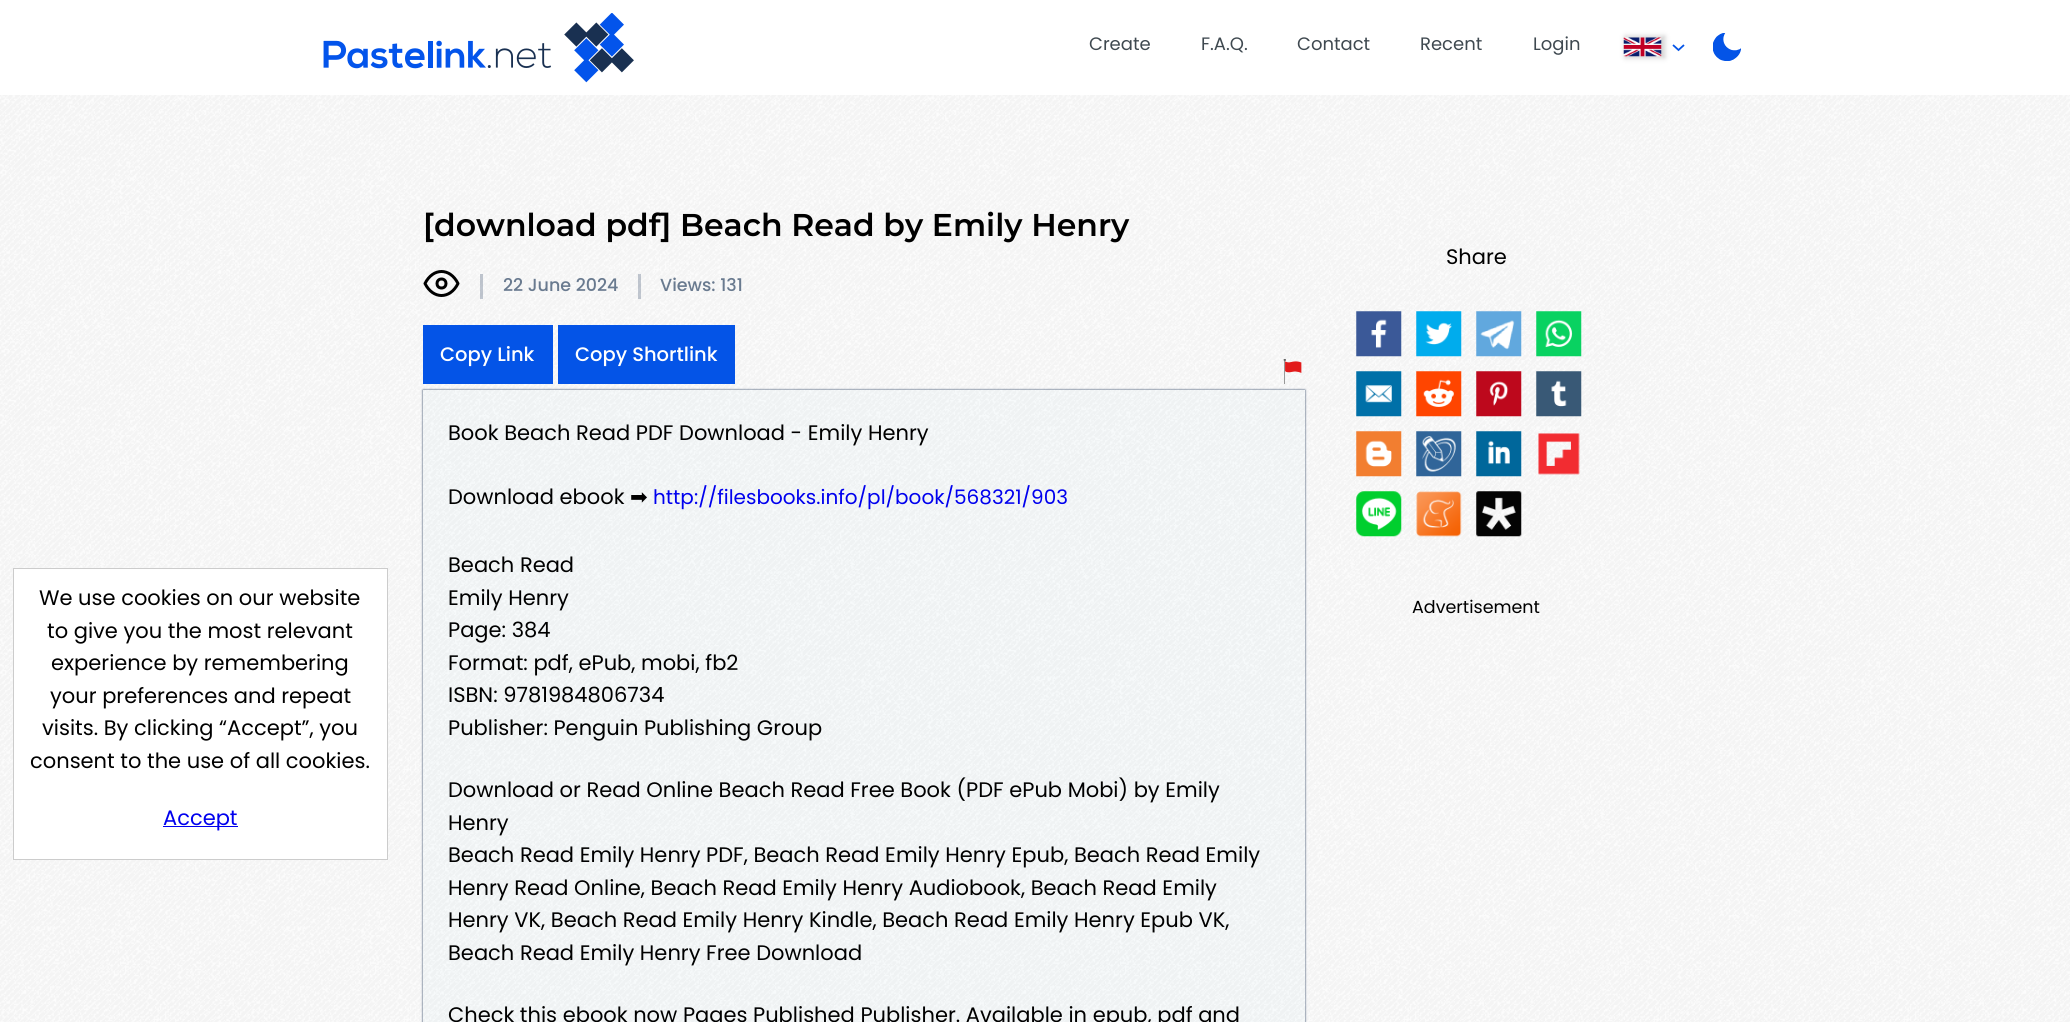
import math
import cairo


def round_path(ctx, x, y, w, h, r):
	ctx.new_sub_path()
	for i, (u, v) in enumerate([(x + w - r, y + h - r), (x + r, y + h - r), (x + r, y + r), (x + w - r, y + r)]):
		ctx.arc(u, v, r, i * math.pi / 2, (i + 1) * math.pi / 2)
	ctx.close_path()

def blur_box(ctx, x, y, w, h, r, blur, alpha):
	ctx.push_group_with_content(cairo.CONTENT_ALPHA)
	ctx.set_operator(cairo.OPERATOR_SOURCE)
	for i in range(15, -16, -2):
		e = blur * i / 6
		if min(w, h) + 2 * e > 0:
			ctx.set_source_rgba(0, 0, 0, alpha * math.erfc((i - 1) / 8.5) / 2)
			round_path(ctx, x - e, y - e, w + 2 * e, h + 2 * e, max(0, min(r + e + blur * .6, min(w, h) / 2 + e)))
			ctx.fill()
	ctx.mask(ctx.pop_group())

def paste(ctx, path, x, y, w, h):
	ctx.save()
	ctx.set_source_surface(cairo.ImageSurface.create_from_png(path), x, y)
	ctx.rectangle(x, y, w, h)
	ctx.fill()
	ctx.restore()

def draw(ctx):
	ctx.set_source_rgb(1, 1, 1)
	ctx.paint()
	paste(ctx, 'media/1.png', 0, 95, 2070, 927)
	paste(ctx, 'media/2.png', 323, 13, 311, 70)
	ctx.select_font_face('Poppins')
	ctx.set_font_size(18)
	ctx.set_source_rgb(0.247, 0.286, 0.314)
	for x, y, s in [
		(1089, 50, 'Create'),
		(1201, 50, 'F.A.Q.'),
		(1297, 50, 'Contact'),
		(1420, 50, 'Recent'),
		(1533, 50, 'Login'),
	]:
		ctx.move_to(x, y)
		ctx.show_text(s)
	ctx.set_source_rgb(0.824, 0.824, 0.824)
	blur_box(ctx, 1625, 36, 40, 22, 0, 2.5, 1)
	paste(ctx, 'media/3.png', 1623, 37, 39, 20)
	ctx.new_path()
	ctx.move_to(1684, 45)
	ctx.line_to(1678.5, 50)
	ctx.line_to(1673, 45)
	ctx.set_source_rgb(0.016, 0.329, 0.906)
	ctx.set_line_width(1.8)
	ctx.stroke()
	paste(ctx, 'media/4.png', 1713, 33, 28, 28)
	ctx.set_source_rgb(1, 1, 1)
	ctx.rectangle(13.5, 568.5, 374, 291)
	ctx.fill_preserve()
	ctx.set_source_rgb(0.8, 0.8, 0.8)
	ctx.set_line_width(1)
	ctx.stroke()
	ctx.set_font_size(21)
	ctx.set_source_rgb(0, 0, 0)
	for x, y, s in [
		(39, 605, 'We use cookies on our website'),
		(47, 638, 'to give you the most relevant'),
		(51, 670, 'experience by remembering'),
		(50, 703, 'your preferences and repeat'),
		(42, 735, 'visits. By clicking “Accept”, you'),
		(30, 768, 'consent to the use of all cookies.'),
	]:
		ctx.move_to(x, y)
		ctx.show_text(s)
	ctx.set_source_rgb(0, 0, 0.933)
	ctx.rectangle(163, 826, 75, 1)
	ctx.fill()
	ctx.move_to(163, 825)
	ctx.show_text('Accept')
	ctx.select_font_face('Montserrat Thin')
	ctx.set_font_size(31.5)
	ctx.set_source_rgb(0, 0, 0)
	ctx.move_to(423, 236)
	ctx.show_text('[download pdf] Beach Read by Emily Henry')
	ctx.new_path()
	ctx.move_to(425, 283.5)
	ctx.curve_to(433, 267.5, 450, 267.5, 458, 283.5)
	ctx.curve_to(450, 299.5, 433, 299.5, 425, 283.5)
	ctx.close_path()
	ctx.move_to(441.5, 288)
	ctx.curve_to(447.5, 288, 447.5, 279, 441.5, 279)
	ctx.curve_to(435.5, 279, 435.5, 288, 441.5, 288)
	ctx.close_path()
	ctx.set_line_width(3)
	ctx.set_line_cap(cairo.LINE_CAP_ROUND)
	ctx.set_line_join(cairo.LINE_JOIN_ROUND)
	ctx.stroke()
	ctx.set_source_rgba(0.412, 0.478, 0.561, 0.4)
	ctx.rectangle(480, 274, 3, 25)
	ctx.fill()
	ctx.select_font_face('Poppins Medium')
	ctx.set_font_size(17.5)
	ctx.set_source_rgb(0.412, 0.478, 0.561)
	ctx.move_to(503, 291)
	ctx.show_text('22 June 2024')
	ctx.set_source_rgba(0.412, 0.478, 0.561, 0.4)
	ctx.rectangle(638, 274, 3, 25)
	ctx.fill()
	ctx.set_source_rgb(0.412, 0.478, 0.561)
	ctx.move_to(660, 291)
	ctx.show_text('Views: 131')
	ctx.set_source_rgb(0.016, 0.329, 0.906)
	ctx.rectangle(423, 325, 130, 59)
	ctx.fill()
	ctx.set_font_size(19.5)
	ctx.set_source_rgb(1, 1, 1)
	ctx.move_to(440, 361)
	ctx.show_text('Copy Link')
	ctx.set_source_rgb(0.016, 0.329, 0.906)
	ctx.rectangle(558, 325, 177, 59)
	ctx.fill()
	ctx.set_source_rgb(1, 1, 1)
	ctx.move_to(575, 361)
	ctx.show_text('Copy Shortlink')
	paste(ctx, 'media/5.png', 1283, 359, 19, 25)
	ctx.save()
	ctx.set_fill_rule(cairo.FILL_RULE_EVEN_ODD)
	ctx.new_path()
	ctx.move_to(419, 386)
	ctx.line_to(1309, 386)
	ctx.line_to(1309, 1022)
	ctx.line_to(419, 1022)
	ctx.close_path()
	ctx.move_to(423, 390)
	ctx.line_to(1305, 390)
	ctx.line_to(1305, 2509)
	ctx.line_to(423, 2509)
	ctx.close_path()
	ctx.clip()
	ctx.set_source_rgb(0.09, 0.184, 0.329)
	blur_box(ctx, 423, 390, 882, 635, 0, 1, 1)
	ctx.restore()
	ctx.set_source_rgba(0.557, 0.875, 0.902, 0.04)
	ctx.rectangle(423, 390, 882, 632)
	ctx.fill()
	ctx.select_font_face('Poppins')
	ctx.set_font_size(21)
	ctx.set_source_rgb(0, 0, 0)
	ctx.move_to(448, 440)
	ctx.show_text('Book Beach Read PDF Download - Emily Henry')
	ctx.move_to(448, 504)
	ctx.show_text('Download ebook')
	ctx.select_font_face('DejaVu Sans')
	ctx.move_to(630, 504)
	ctx.show_text('➡')
	ctx.select_font_face('Poppins')
	ctx.set_font_size(20)
	ctx.set_source_rgb(0, 0, 0.933)
	ctx.move_to(653, 504)
	ctx.show_text('http://filesbooks.info/pl/book/568321/903')
	ctx.set_font_size(21)
	ctx.set_source_rgb(0, 0, 0)
	for x, y, s in [
		(448, 572, 'Beach Read'),
		(448, 605, 'Emily Henry'),
		(448, 637, 'Page: 384'),
		(448, 670, 'Format: pdf, ePub, mobi, fb2'),
		(448, 702, 'ISBN: 9781984806734'),
		(448, 735, 'Publisher: Penguin Publishing Group'),
		(448, 797, 'Download or Read Online Beach Read Free Book (PDF ePub Mobi) by Emily'),
		(448, 830, 'Henry'),
		(448, 862, 'Beach Read Emily Henry PDF, Beach Read Emily Henry Epub, Beach Read Emily'),
		(448, 895, 'Henry Read Online, Beach Read Emily Henry Audiobook, Beach Read Emily'),
		(448, 927, 'Henry VK, Beach Read Emily Henry Kindle, Beach Read Emily Henry Epub VK,'),
		(448, 960, 'Beach Read Emily Henry Free Download'),
		(448, 1022, 'Check this ebook now Pages Published Publisher. Available in epub, pdf and'),
		(1446, 264, 'Share'),
	]:
		ctx.move_to(x, y)
		ctx.show_text(s)
	paste(ctx, 'media/6.png', 1356, 311, 46, 46)
	paste(ctx, 'media/7.png', 1416, 311, 46, 46)
	paste(ctx, 'media/8.png', 1476, 311, 46, 46)
	paste(ctx, 'media/9.png', 1536, 311, 46, 46)
	paste(ctx, 'media/10.png', 1356, 371, 46, 46)
	paste(ctx, 'media/11.png', 1416, 371, 46, 46)
	paste(ctx, 'media/12.png', 1476, 371, 46, 46)
	paste(ctx, 'media/13.png', 1536, 371, 46, 46)
	paste(ctx, 'media/14.png', 1356, 431, 46, 46)
	paste(ctx, 'media/15.png', 1416, 431, 46, 46)
	paste(ctx, 'media/16.png', 1476, 431, 46, 46)
	paste(ctx, 'media/17.png', 1538, 433, 42, 42)
	paste(ctx, 'media/18.png', 1356, 491, 46, 46)
	paste(ctx, 'media/19.png', 1416, 491, 46, 46)
	paste(ctx, 'media/20.png', 1476, 491, 46, 46)
	ctx.set_font_size(17.5)
	ctx.move_to(1412, 613)
	ctx.show_text('Advertisement')


surface = cairo.ImageSurface(cairo.FORMAT_RGB24, 2070, 1022)
ctx = cairo.Context(surface)
options = cairo.FontOptions()
options.set_hint_metrics(cairo.HINT_METRICS_OFF)
options.set_hint_style(cairo.HINT_STYLE_NONE)
ctx.set_font_options(options)
ctx.set_miter_limit(4)
draw(ctx)
surface.write_to_png('image.png')
